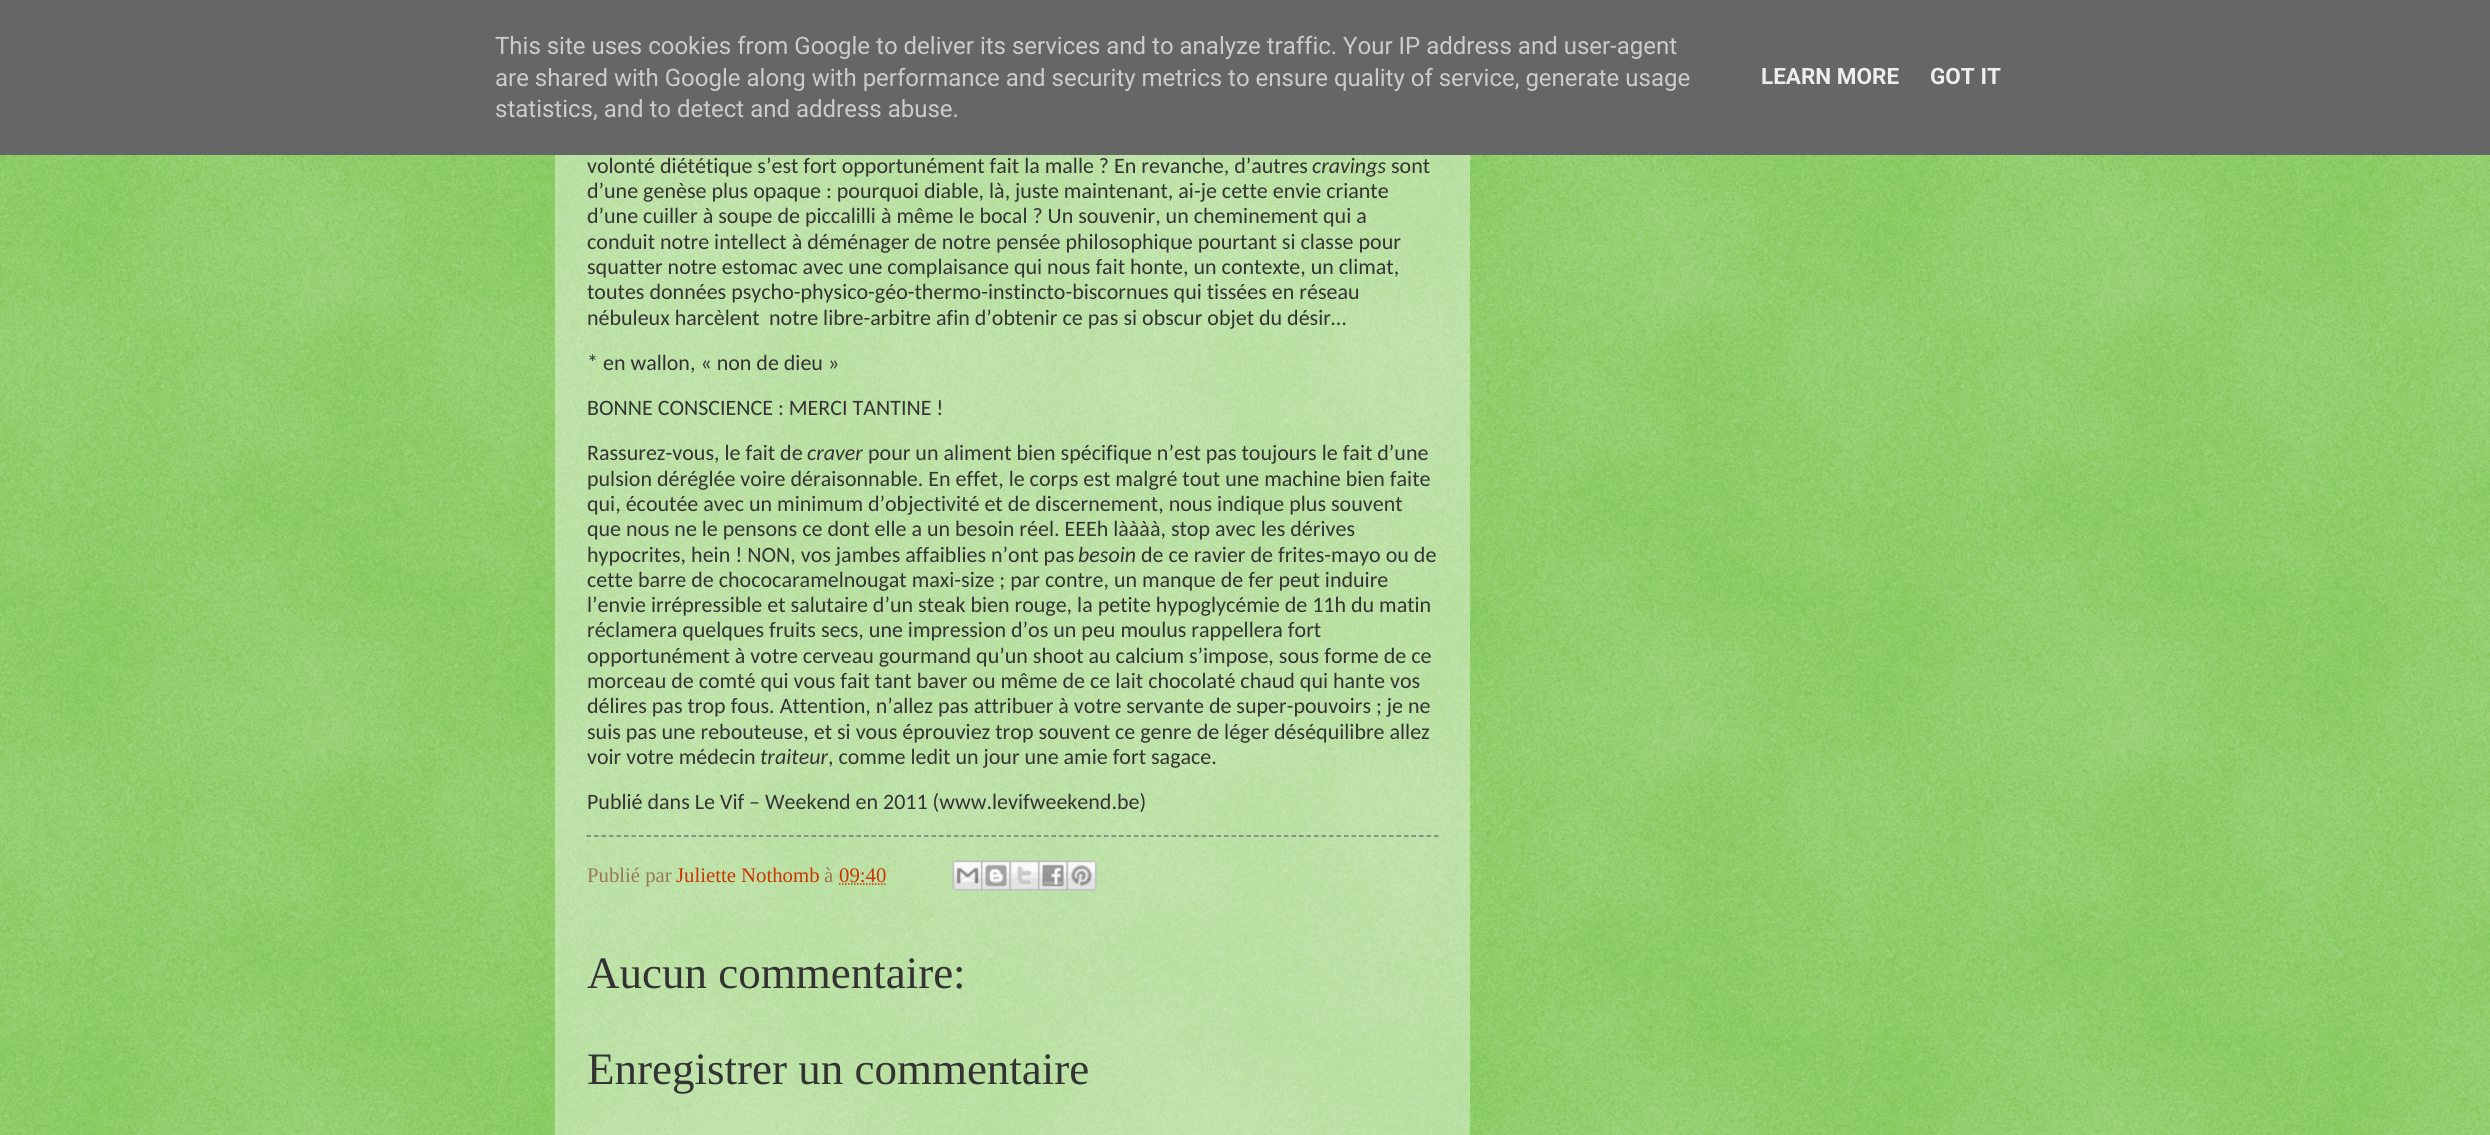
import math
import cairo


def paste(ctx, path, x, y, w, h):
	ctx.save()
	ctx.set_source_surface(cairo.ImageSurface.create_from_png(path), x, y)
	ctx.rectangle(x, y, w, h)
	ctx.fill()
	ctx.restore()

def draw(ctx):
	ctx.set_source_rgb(0.4, 0.733, 0.2)
	ctx.paint()
	ctx.set_source_rgb(0.4, 0.4, 0.4)
	ctx.rectangle(0, 0, 2490, 155)
	ctx.fill()
	ctx.select_font_face('Roboto')
	ctx.set_font_size(24)
	ctx.set_source_rgb(0.8, 0.8, 0.8)
	for x, y, s in [
		(495, 54, 'This site uses cookies from Google to deliver its services and to analyze traffic. Your IP address and user-agent'),
		(495, 86, 'are shared with Google along with performance and security metrics to ensure quality of service, generate usage'),
		(495, 117, 'statistics, and to detect and address abuse.'),
	]:
		ctx.move_to(x, y)
		ctx.show_text(s)
	ctx.select_font_face('Roboto', cairo.FONT_SLANT_NORMAL, cairo.FONT_WEIGHT_BOLD)
	ctx.set_font_size(22.5)
	ctx.set_source_rgb(0.933, 0.933, 0.933)
	ctx.move_to(1761, 84)
	ctx.show_text('LEARN MORE')
	ctx.move_to(1930, 84)
	ctx.show_text('GOT IT')
	paste(ctx, 'media/1.png', 0, 155, 2490, 980)
	ctx.set_source_rgba(1, 1, 1, 0.4)
	ctx.rectangle(555, 155, 915, 980)
	ctx.fill()
	ctx.select_font_face('Carlito')
	ctx.set_font_size(22)
	ctx.set_source_rgb(0.2, 0.2, 0.2)
	ctx.move_to(587, 173)
	ctx.show_text('volonté diététique s’est fort opportunément fait la malle ? En revanche, d’autres')
	ctx.select_font_face('Carlito', cairo.FONT_SLANT_ITALIC)
	ctx.move_to(1312, 173)
	ctx.show_text('cravings')
	ctx.select_font_face('Carlito')
	for x, y, s in [
		(1391, 173, 'sont'),
		(587, 198, 'd’une genèse plus opaque : pourquoi diable, là, juste maintenant, ai-je cette envie criante'),
		(587, 223, 'd’une cuiller à soupe de piccalilli à même le bocal ? Un souvenir, un cheminement qui a'),
		(587, 249, 'conduit notre intellect à déménager de notre pensée philosophique pourtant si classe pour'),
		(587, 274, 'squatter notre estomac avec une complaisance qui nous fait honte, un contexte, un climat,'),
		(587, 299, 'toutes données psycho-physico-géo-thermo-instincto-biscornues qui tissées en réseau'),
		(587, 325, 'nébuleux harcèlent'),
		(769, 325, 'notre libre-arbitre afin d’obtenir ce pas si obscur objet du désir…'),
		(587, 370, '* en wallon, « non de dieu »'),
		(587, 415, 'BONNE CONSCIENCE : MERCI TANTINE !'),
		(587, 460, 'Rassurez-vous, le fait de'),
	]:
		ctx.move_to(x, y)
		ctx.show_text(s)
	ctx.select_font_face('Carlito', cairo.FONT_SLANT_ITALIC)
	ctx.move_to(807, 460)
	ctx.show_text('craver')
	ctx.select_font_face('Carlito')
	for x, y, s in [
		(868, 460, 'pour un aliment bien spécifique n’est pas toujours le fait d’une'),
		(587, 486, 'pulsion déréglée voire déraisonnable. En effet, le corps est malgré tout une machine bien faite'),
		(587, 511, 'qui, écoutée avec un minimum d’objectivité et de discernement, nous indique plus souvent'),
		(587, 536, 'que nous ne le pensons ce dont elle a un besoin réel. EEEh làààà, stop avec les dérives'),
		(587, 562, 'hypocrites, hein ! NON, vos jambes affaiblies n’ont pas'),
	]:
		ctx.move_to(x, y)
		ctx.show_text(s)
	ctx.select_font_face('Carlito', cairo.FONT_SLANT_ITALIC)
	ctx.move_to(1078, 562)
	ctx.show_text('besoin')
	ctx.select_font_face('Carlito')
	for x, y, s in [
		(1141, 562, 'de ce ravier de frites-mayo ou de'),
		(587, 587, 'cette barre de chococaramelnougat maxi-size ; par contre, un manque de fer peut induire'),
		(587, 612, 'l’envie irrépressible et salutaire d’un steak bien rouge, la petite hypoglycémie de 11h du matin'),
		(587, 637, 'réclamera quelques fruits secs, une impression d’os un peu moulus rappellera fort'),
		(587, 663, 'opportunément à votre cerveau gourmand qu’un shoot au calcium s’impose, sous forme de ce'),
		(587, 688, 'morceau de comté qui vous fait tant baver ou même de ce lait chocolaté chaud qui hante vos'),
		(587, 713, 'délires pas trop fous. Attention, n’allez pas attribuer à votre servante de super-pouvoirs ; je ne'),
		(587, 739, 'suis pas une rebouteuse, et si vous éprouviez trop souvent ce genre de léger déséquilibre allez'),
		(587, 764, 'voir votre médecin'),
	]:
		ctx.move_to(x, y)
		ctx.show_text(s)
	ctx.select_font_face('Carlito', cairo.FONT_SLANT_ITALIC)
	ctx.move_to(760, 764)
	ctx.show_text('traiteur')
	ctx.select_font_face('Carlito')
	ctx.move_to(828, 764)
	ctx.show_text(', comme ledit un jour une amie fort sagace.')
	ctx.move_to(587, 809)
	ctx.show_text('Publié dans Le Vif – Weekend en 2011 (www.levifweekend.be)')
	ctx.new_path()
	ctx.move_to(586.5, 836)
	ctx.line_to(1438.5, 836)
	ctx.set_source_rgb(0.467, 0.467, 0.467)
	ctx.set_line_width(1.5)
	ctx.set_dash([4.5, 3])
	ctx.stroke()
	ctx.select_font_face('Liberation Serif')
	ctx.set_font_size(20.75)
	ctx.set_source_rgb(0.6, 0.467, 0.333)
	ctx.move_to(587, 882)
	ctx.show_text('Publié par')
	ctx.set_source_rgb(0.8, 0.2, 0)
	ctx.move_to(676, 882)
	ctx.show_text('Juliette Nothomb')
	ctx.set_source_rgb(0.6, 0.467, 0.333)
	ctx.move_to(824, 882)
	ctx.show_text('à')
	ctx.set_source_rgb(0.8, 0.2, 0)
	ctx.move_to(839, 882)
	ctx.show_text('09:40')
	ctx.new_path()
	ctx.move_to(839, 884)
	ctx.line_to(886, 884)
	ctx.set_dash([1.5, 1.5])
	ctx.stroke()
	paste(ctx, 'media/2.png', 952, 860, 31, 31)
	paste(ctx, 'media/3.png', 981, 860, 30, 31)
	paste(ctx, 'media/4.png', 1009, 860, 31, 31)
	paste(ctx, 'media/5.png', 1038, 860, 30, 31)
	paste(ctx, 'media/6.png', 1066, 860, 31, 31)
	ctx.set_font_size(45)
	ctx.set_source_rgb(0.2, 0.2, 0.2)
	ctx.move_to(587, 988)
	ctx.show_text('Aucun commentaire:')
	ctx.move_to(587, 1084)
	ctx.show_text('Enregistrer un commentaire')


surface = cairo.ImageSurface(cairo.FORMAT_RGB24, 2490, 1135)
ctx = cairo.Context(surface)
options = cairo.FontOptions()
options.set_hint_metrics(cairo.HINT_METRICS_OFF)
options.set_hint_style(cairo.HINT_STYLE_NONE)
ctx.set_font_options(options)
ctx.set_miter_limit(4)
draw(ctx)
surface.write_to_png('image.png')
